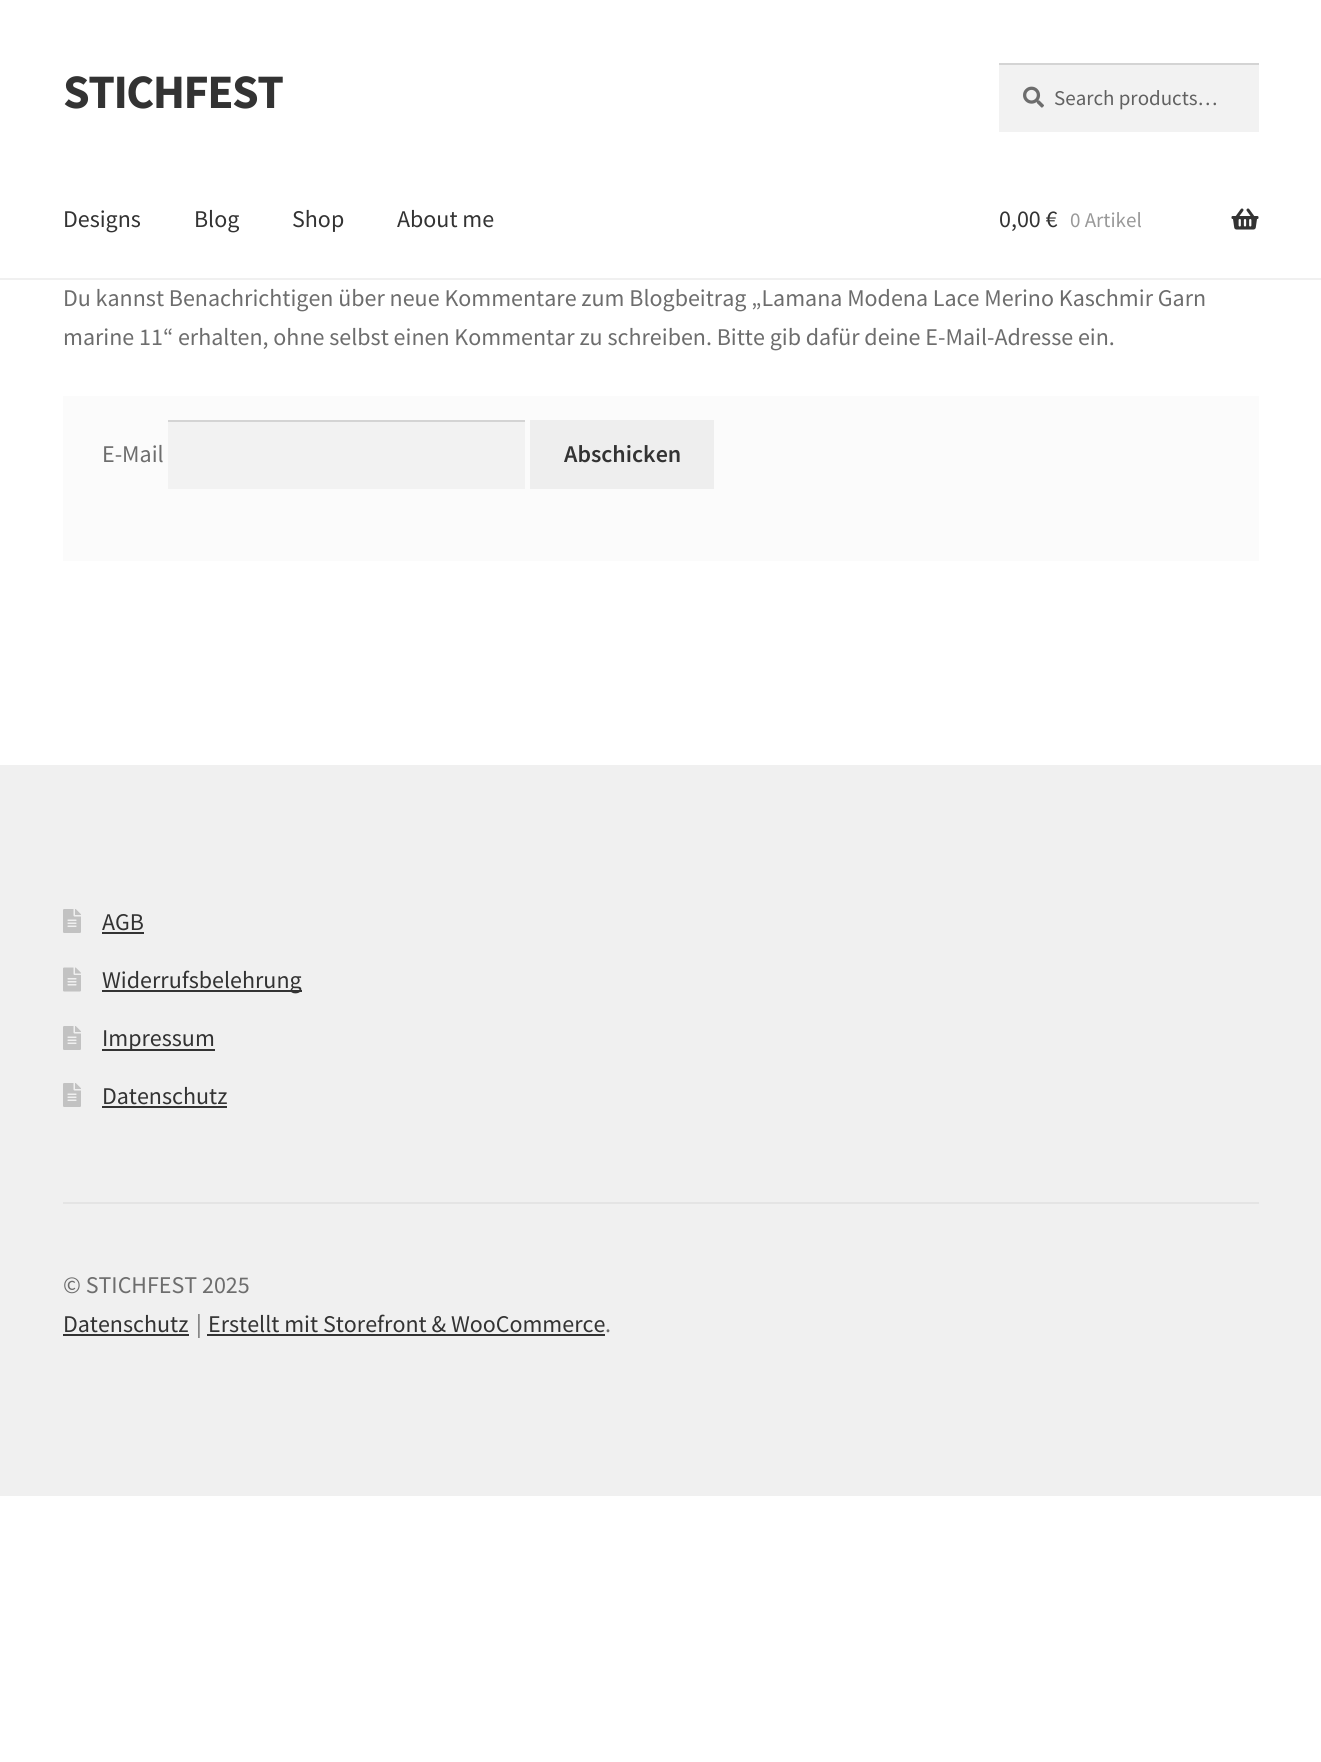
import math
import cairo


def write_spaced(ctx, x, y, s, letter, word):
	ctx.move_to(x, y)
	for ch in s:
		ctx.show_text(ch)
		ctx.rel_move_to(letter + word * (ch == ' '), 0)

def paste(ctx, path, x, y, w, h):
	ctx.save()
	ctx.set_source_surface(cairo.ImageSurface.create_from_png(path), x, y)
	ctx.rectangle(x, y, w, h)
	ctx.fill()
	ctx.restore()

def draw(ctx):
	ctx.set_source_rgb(1, 1, 1)
	ctx.paint()
	ctx.set_source_rgb(0.941, 0.941, 0.941)
	ctx.rectangle(0, 278, 1321, 2)
	ctx.fill()
	ctx.select_font_face('Source Sans Pro', cairo.FONT_SLANT_NORMAL, cairo.FONT_WEIGHT_BOLD)
	ctx.set_font_size(48)
	ctx.set_source_rgb(0.2, 0.2, 0.2)
	write_spaced(ctx, 63, 108, 'STICHFEST', -1.5, 0)
	ctx.set_source_rgb(0.949, 0.949, 0.949)
	ctx.rectangle(999, 65, 260, 67)
	ctx.fill()
	paste(ctx, 'media/1.png', 1023, 86, 21, 22)
	ctx.set_source_rgb(0.831, 0.831, 0.831)
	ctx.rectangle(999, 63, 260, 2)
	ctx.fill()
	ctx.select_font_face('Source Sans Pro')
	ctx.set_font_size(21)
	ctx.set_source_rgb(0.38, 0.38, 0.38)
	ctx.move_to(1054, 105)
	ctx.show_text('Search products…')
	ctx.set_font_size(24)
	ctx.set_source_rgb(0.2, 0.2, 0.2)
	for x, y, s in [
		(63, 227, 'Designs'),
		(194, 227, 'Blog'),
		(292, 227, 'Shop'),
		(397, 227, 'About me'),
		(999, 227, '0,00 €'),
	]:
		ctx.move_to(x, y)
		ctx.show_text(s)
	ctx.set_font_size(21)
	ctx.set_source_rgb(0.6, 0.6, 0.6)
	ctx.move_to(1070, 227)
	ctx.show_text('0 Artikel')
	paste(ctx, 'media/2.png', 1231, 208, 28, 22)
	ctx.set_font_size(24)
	ctx.set_source_rgb(0.427, 0.427, 0.427)
	ctx.move_to(63, 306)
	ctx.show_text('Du kannst Benachrichtigen über neue Kommentare zum Blogbeitrag „Lamana Modena Lace Merino Kaschmir Garn')
	ctx.move_to(63, 345)
	ctx.show_text('marine 11“ erhalten, ohne selbst einen Kommentar zu schreiben. Bitte gib dafür deine E-Mail-Adresse ein.')
	ctx.set_source_rgb(0.984, 0.984, 0.984)
	ctx.rectangle(63, 396, 1196, 165)
	ctx.fill()
	ctx.set_source_rgb(0.427, 0.427, 0.427)
	ctx.move_to(102, 462)
	ctx.show_text('E-Mail')
	ctx.set_source_rgb(0.949, 0.949, 0.949)
	ctx.rectangle(168, 422, 357, 67)
	ctx.fill()
	ctx.set_source_rgb(0.831, 0.831, 0.831)
	ctx.rectangle(168, 420, 357, 2)
	ctx.fill()
	ctx.set_source_rgb(0.933, 0.933, 0.933)
	ctx.rectangle(530, 420, 184, 69)
	ctx.fill()
	ctx.select_font_face('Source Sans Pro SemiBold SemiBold')
	ctx.set_source_rgb(0.2, 0.2, 0.2)
	ctx.move_to(564, 462)
	ctx.show_text('Abschicken')
	ctx.set_source_rgb(0.941, 0.941, 0.941)
	ctx.rectangle(0, 765, 1321, 731)
	ctx.fill()
	ctx.set_source_rgb(0.894, 0.894, 0.894)
	ctx.rectangle(63, 1202, 1196, 2)
	ctx.fill()
	paste(ctx, 'media/3.png', 63, 909, 18, 24)
	ctx.select_font_face('Source Sans Pro')
	ctx.set_source_rgb(0.2, 0.2, 0.2)
	ctx.move_to(102, 930)
	ctx.show_text('AGB')
	ctx.rectangle(102, 932, 42, 2)
	ctx.fill()
	paste(ctx, 'media/4.png', 63, 967, 18, 25)
	ctx.rectangle(102, 990, 200, 2)
	ctx.fill()
	ctx.move_to(102, 988)
	ctx.show_text('Widerrufsbelehrung')
	paste(ctx, 'media/3.png', 63, 1026, 18, 24)
	ctx.rectangle(102, 1049, 113, 2)
	ctx.fill()
	ctx.move_to(102, 1046)
	ctx.show_text('Impressum')
	paste(ctx, 'media/3.png', 63, 1083, 18, 24)
	ctx.move_to(102, 1104)
	ctx.show_text('Datenschutz')
	ctx.rectangle(102, 1106, 125, 2)
	ctx.fill()
	ctx.set_source_rgb(0.427, 0.427, 0.427)
	ctx.move_to(63, 1293)
	ctx.show_text('© STICHFEST 2025')
	ctx.set_source_rgb(0.2, 0.2, 0.2)
	ctx.move_to(63, 1332)
	ctx.show_text('Datenschutz')
	ctx.rectangle(63, 1334, 126, 2)
	ctx.fill()
	ctx.set_source_rgb(0.427, 0.427, 0.427)
	ctx.move_to(196, 1332)
	ctx.show_text('|')
	ctx.set_source_rgb(0.2, 0.2, 0.2)
	ctx.move_to(208, 1332)
	ctx.show_text('Erstellt mit Storefront & WooCommerce')
	ctx.rectangle(207, 1334, 398, 2)
	ctx.fill()
	ctx.set_source_rgb(0.427, 0.427, 0.427)
	ctx.move_to(605, 1332)
	ctx.show_text('.')


surface = cairo.ImageSurface(cairo.FORMAT_RGB24, 1321, 1762)
ctx = cairo.Context(surface)
options = cairo.FontOptions()
options.set_hint_metrics(cairo.HINT_METRICS_OFF)
options.set_hint_style(cairo.HINT_STYLE_NONE)
ctx.set_font_options(options)
ctx.set_miter_limit(4)
draw(ctx)
surface.write_to_png('image.png')
